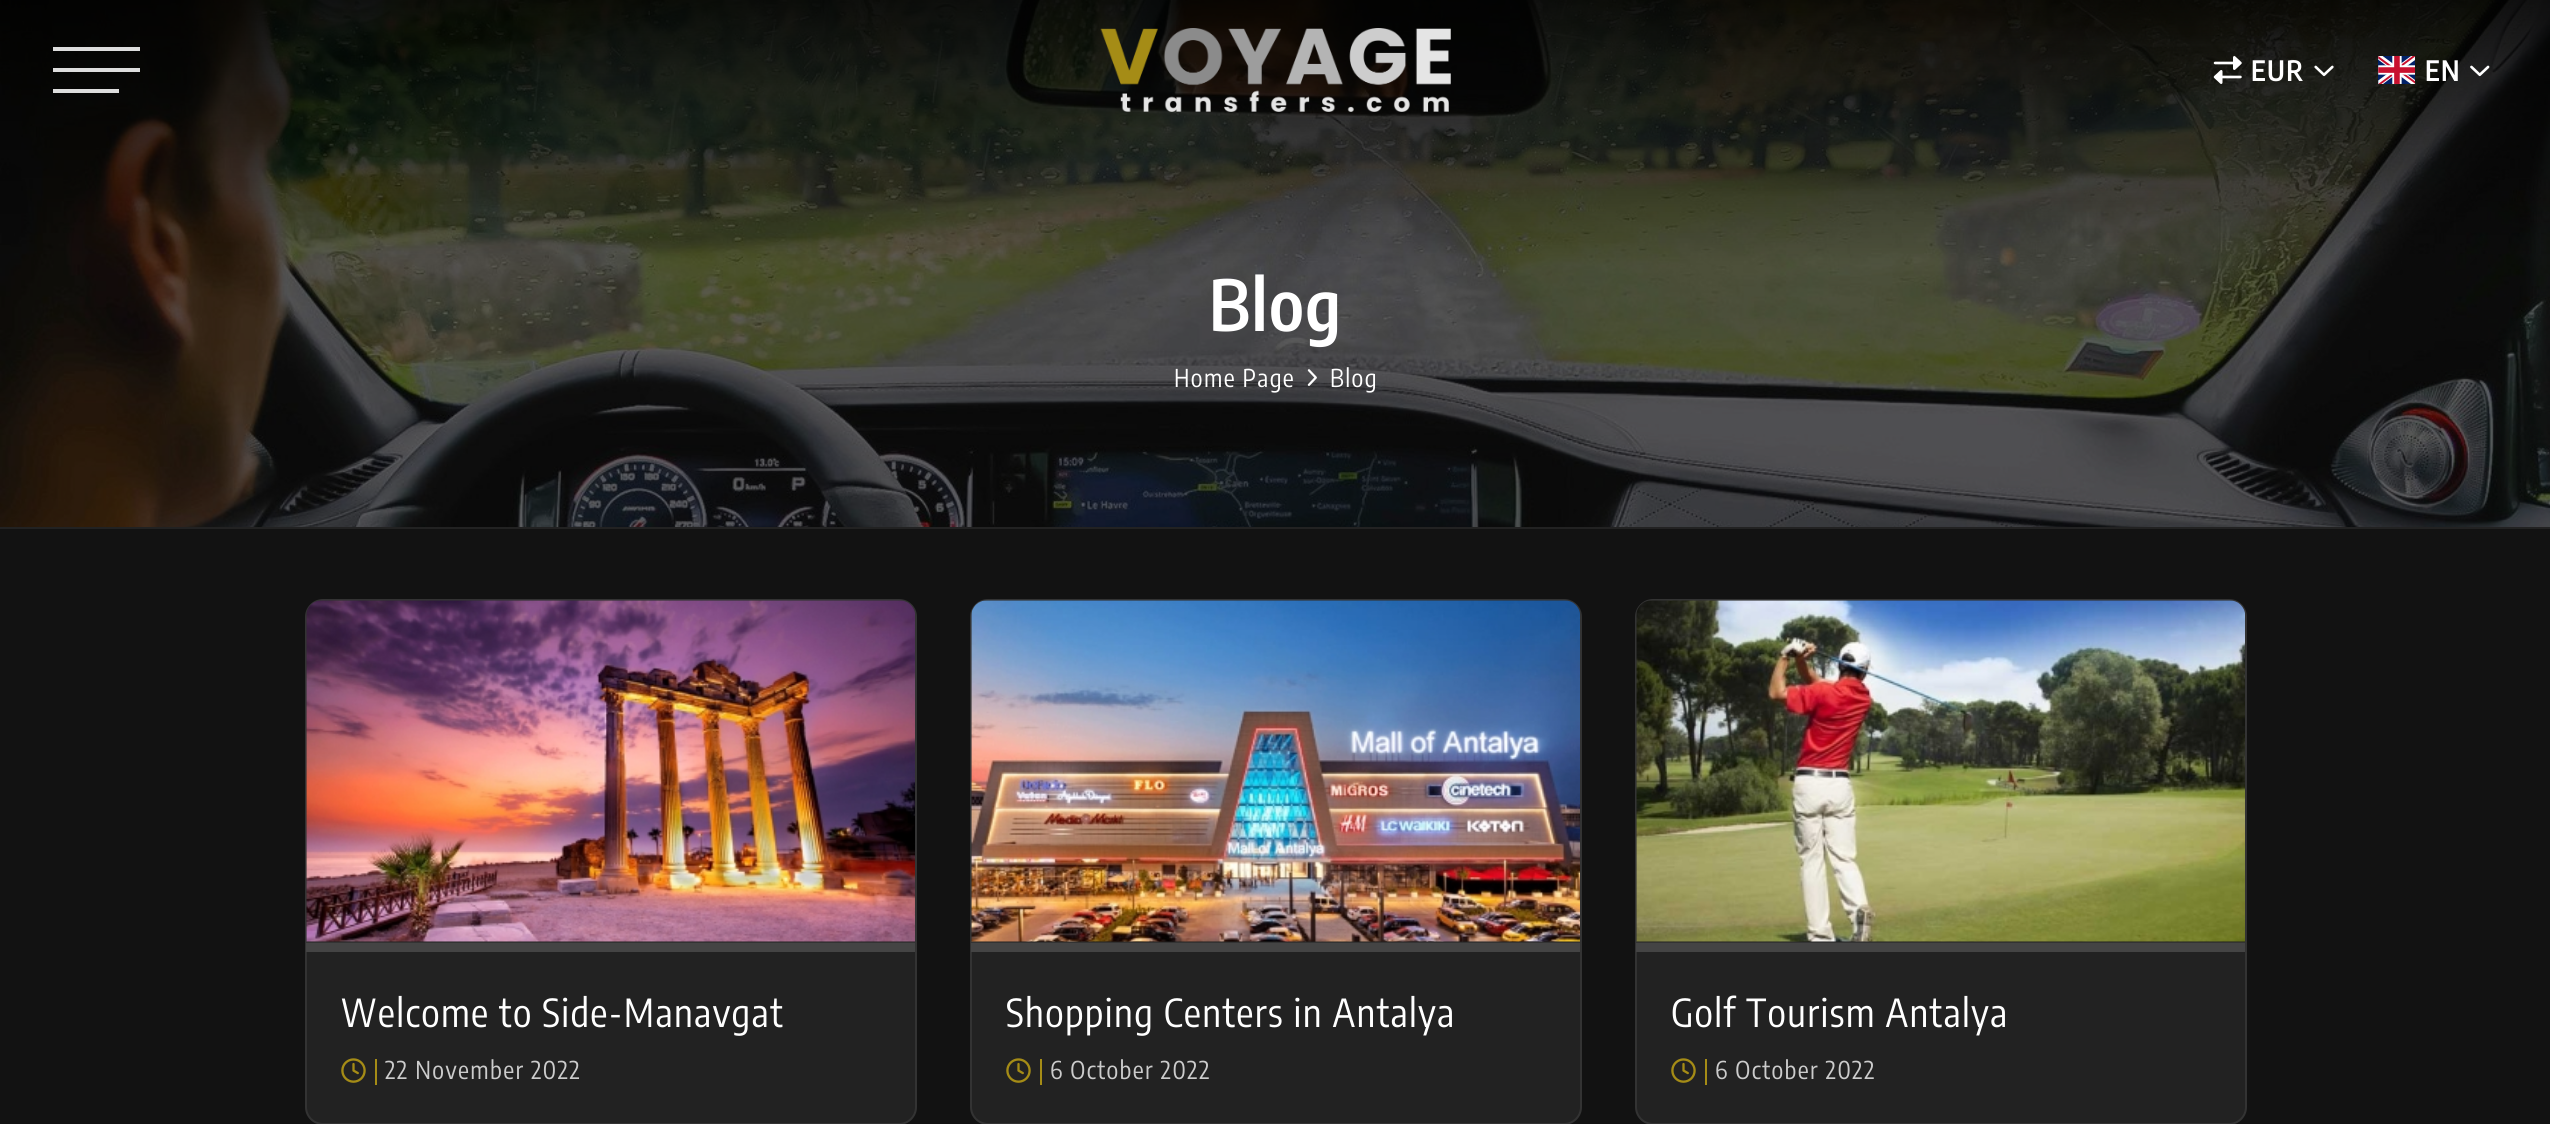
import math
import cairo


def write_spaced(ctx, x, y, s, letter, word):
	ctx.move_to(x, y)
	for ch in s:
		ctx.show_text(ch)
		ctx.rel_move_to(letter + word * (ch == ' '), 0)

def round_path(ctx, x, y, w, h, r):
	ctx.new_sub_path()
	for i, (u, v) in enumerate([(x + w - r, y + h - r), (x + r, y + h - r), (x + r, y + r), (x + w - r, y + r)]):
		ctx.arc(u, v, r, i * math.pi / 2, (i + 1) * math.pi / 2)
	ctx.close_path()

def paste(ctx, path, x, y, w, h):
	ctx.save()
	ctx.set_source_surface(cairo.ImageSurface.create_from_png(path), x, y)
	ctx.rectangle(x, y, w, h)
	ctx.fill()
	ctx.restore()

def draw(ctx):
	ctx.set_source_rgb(0.071, 0.071, 0.071)
	ctx.paint()
	paste(ctx, 'media/6.png', 0, 0, 2550, 527)
	ctx.set_source_rgb(0.867, 0.867, 0.867)
	ctx.rectangle(53, 47, 87, 4)
	ctx.rectangle(53, 68, 87, 4)
	ctx.rectangle(53, 89, 66, 4)
	ctx.fill()
	paste(ctx, 'media/1.png', 1100, 28, 351, 84)
	paste(ctx, 'media/2.png', 2213, 56, 29, 28)
	ctx.select_font_face('Encode Sans Condensed SemiBold')
	ctx.set_font_size(28)
	ctx.set_source_rgb(1, 1, 1)
	write_spaced(ctx, 2251, 81, 'EUR', 1.4, 0)
	paste(ctx, 'media/3.png', 2314, 65, 20, 12)
	paste(ctx, 'media/4.png', 2378, 56, 37, 28)
	write_spaced(ctx, 2425, 81, 'EN', 1.4, 0)
	paste(ctx, 'media/5.png', 2470, 65, 20, 12)
	ctx.set_source_rgb(0.133, 0.133, 0.133)
	ctx.rectangle(0, 527, 2550, 2)
	ctx.fill()
	ctx.set_font_size(70)
	ctx.set_source_rgb(1, 1, 1)
	write_spaced(ctx, 1209, 331, 'Blog', 1.4, 0)
	ctx.select_font_face('Encode Sans Condensed')
	ctx.set_font_size(24.5)
	write_spaced(ctx, 1174, 387, 'Home Page', 1.4, 0)
	paste(ctx, 'media/7.png', 1307, 369, 10, 17)
	write_spaced(ctx, 1330, 387, 'Blog', 1.4, 0)
	ctx.set_source_rgb(0.133, 0.133, 0.133)
	round_path(ctx, 306, 600, 610, 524, 17)
	ctx.fill_preserve()
	ctx.set_source_rgb(0.2, 0.2, 0.2)
	ctx.stroke()
	ctx.rectangle(306, 942, 609, 1)
	ctx.fill()
	paste(ctx, 'media/8.png', 306, 600, 609, 342)
	ctx.set_source_rgb(0.267, 0.267, 0.267)
	ctx.rectangle(306, 943, 609, 9)
	ctx.fill()
	ctx.set_font_size(38.5)
	ctx.set_source_rgb(1, 1, 1)
	write_spaced(ctx, 341, 1027, 'Welcome to Side-Manavgat', 1.4, 0)
	paste(ctx, 'media/9.png', 341, 1058, 25, 25)
	ctx.set_source_rgb(0.647, 0.549, 0.086)
	ctx.rectangle(375, 1059, 2, 26)
	ctx.fill()
	ctx.set_font_size(24.5)
	ctx.set_source_rgb(0.8, 0.8, 0.8)
	write_spaced(ctx, 385, 1079, '22 November 2022', 1.4, 0)
	ctx.set_source_rgb(0.133, 0.133, 0.133)
	round_path(ctx, 971, 600, 610, 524, 17)
	ctx.fill_preserve()
	ctx.set_source_rgb(0.2, 0.2, 0.2)
	ctx.stroke()
	ctx.rectangle(971, 942, 609, 1)
	ctx.fill()
	paste(ctx, 'media/10.png', 971, 600, 609, 342)
	ctx.set_source_rgb(0.267, 0.267, 0.267)
	ctx.rectangle(971, 943, 609, 9)
	ctx.fill()
	ctx.set_font_size(38.5)
	ctx.set_source_rgb(1, 1, 1)
	write_spaced(ctx, 1006, 1027, 'Shopping Centers in Antalya', 1.4, 0)
	paste(ctx, 'media/9.png', 1006, 1058, 25, 25)
	ctx.set_source_rgb(0.647, 0.549, 0.086)
	ctx.rectangle(1040, 1059, 2, 26)
	ctx.fill()
	ctx.set_font_size(24.5)
	ctx.set_source_rgb(0.8, 0.8, 0.8)
	write_spaced(ctx, 1050, 1079, '6 October 2022', 1.4, 0)
	ctx.set_source_rgb(0.133, 0.133, 0.133)
	round_path(ctx, 1636, 600, 610, 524, 17)
	ctx.fill_preserve()
	ctx.set_source_rgb(0.2, 0.2, 0.2)
	ctx.stroke()
	ctx.rectangle(1636, 942, 609, 1)
	ctx.fill()
	paste(ctx, 'media/11.png', 1636, 600, 609, 342)
	ctx.set_source_rgb(0.267, 0.267, 0.267)
	ctx.rectangle(1636, 943, 609, 9)
	ctx.fill()
	ctx.set_font_size(38.5)
	ctx.set_source_rgb(1, 1, 1)
	write_spaced(ctx, 1671, 1027, 'Golf Tourism Antalya', 1.4, 0)
	paste(ctx, 'media/9.png', 1671, 1058, 25, 25)
	ctx.set_source_rgb(0.647, 0.549, 0.086)
	ctx.rectangle(1705, 1059, 2, 26)
	ctx.fill()
	ctx.set_font_size(24.5)
	ctx.set_source_rgb(0.8, 0.8, 0.8)
	write_spaced(ctx, 1715, 1079, '6 October 2022', 1.4, 0)


surface = cairo.ImageSurface(cairo.FORMAT_RGB24, 2550, 1124)
ctx = cairo.Context(surface)
options = cairo.FontOptions()
options.set_hint_metrics(cairo.HINT_METRICS_OFF)
options.set_hint_style(cairo.HINT_STYLE_NONE)
ctx.set_font_options(options)
ctx.set_miter_limit(4)
draw(ctx)
surface.write_to_png('image.png')
